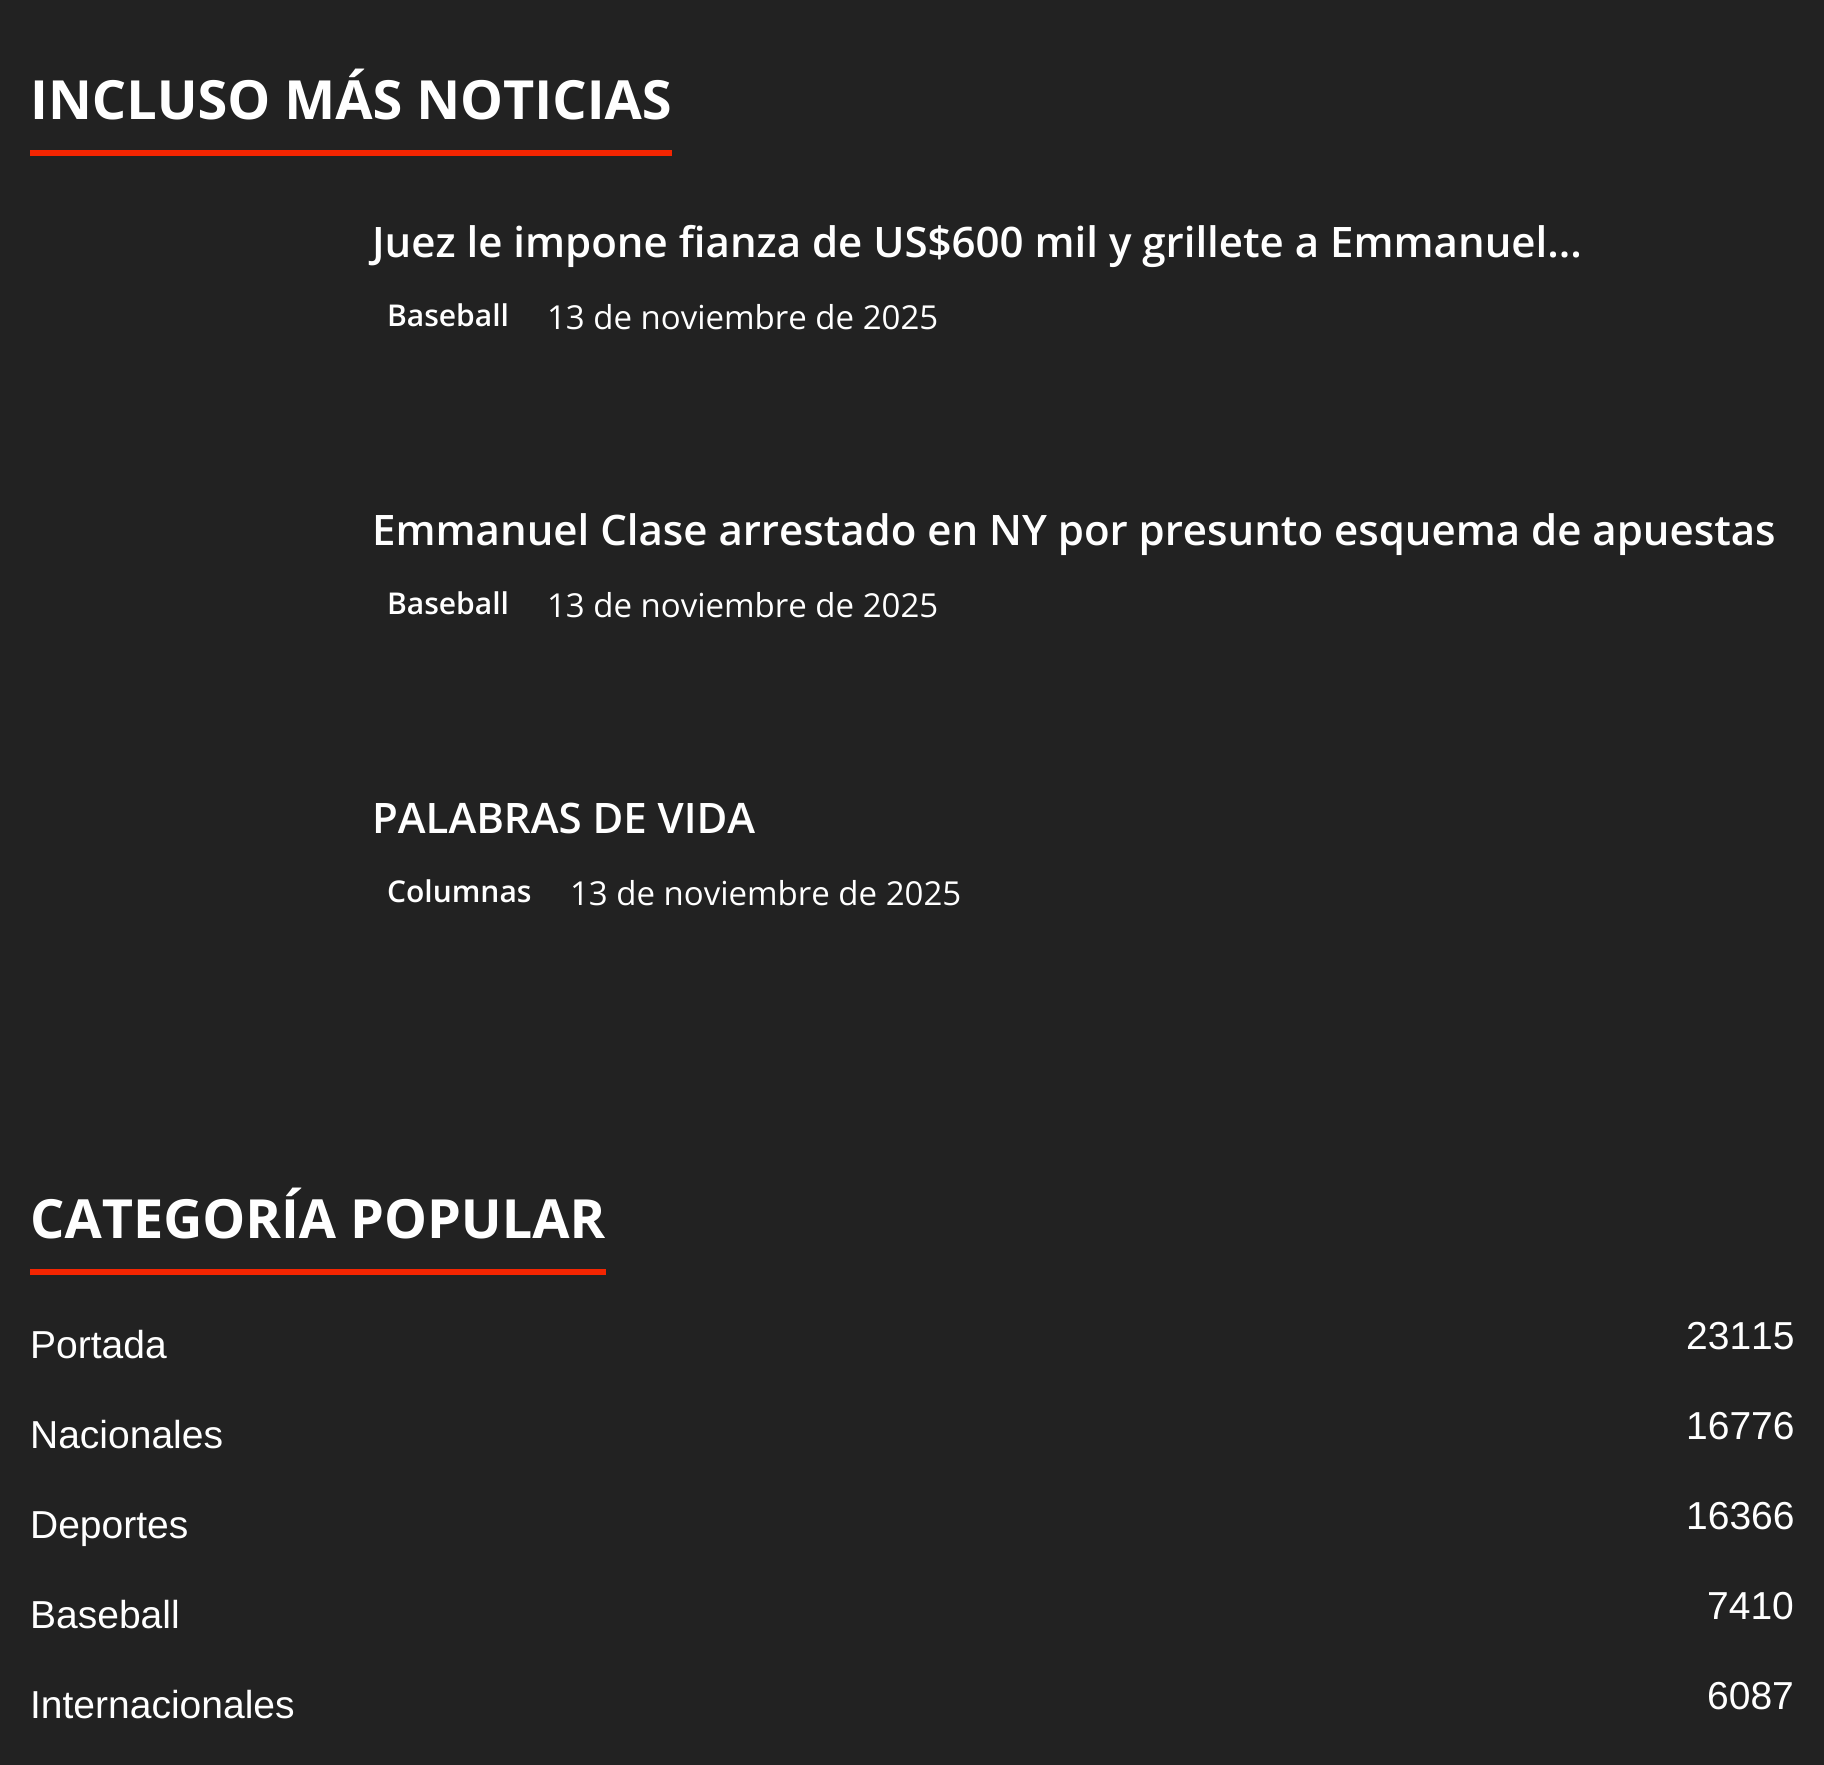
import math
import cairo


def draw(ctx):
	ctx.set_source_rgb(0.133, 0.133, 0.133)
	ctx.paint()
	ctx.select_font_face('Open Sans', cairo.FONT_SLANT_NORMAL, cairo.FONT_WEIGHT_BOLD)
	ctx.set_font_size(54)
	ctx.set_source_rgb(1, 1, 1)
	ctx.move_to(30, 119)
	ctx.show_text('INCLUSO MÁS NOTICIAS')
	ctx.set_source_rgb(0.957, 0.145, 0.004)
	ctx.rectangle(30, 150, 642, 6)
	ctx.fill()
	ctx.select_font_face('Open Sans SemiBold')
	ctx.set_font_size(42)
	ctx.set_source_rgb(1, 1, 1)
	ctx.move_to(372, 257)
	ctx.show_text('Juez le impone fianza de US$600 mil y grillete a Emmanuel...')
	ctx.set_font_size(30)
	ctx.move_to(387, 326)
	ctx.show_text('Baseball')
	ctx.select_font_face('Open Sans')
	ctx.set_font_size(33)
	ctx.move_to(547, 329)
	ctx.show_text('13 de noviembre de 2025')
	ctx.select_font_face('Open Sans SemiBold')
	ctx.set_font_size(42)
	ctx.move_to(372, 545)
	ctx.show_text('Emmanuel Clase arrestado en NY por presunto esquema de apuestas')
	ctx.set_font_size(30)
	ctx.move_to(387, 614)
	ctx.show_text('Baseball')
	ctx.select_font_face('Open Sans')
	ctx.set_font_size(33)
	ctx.move_to(547, 617)
	ctx.show_text('13 de noviembre de 2025')
	ctx.select_font_face('Open Sans SemiBold')
	ctx.set_font_size(42)
	ctx.move_to(372, 833)
	ctx.show_text('PALABRAS DE VIDA')
	ctx.set_font_size(30)
	ctx.move_to(387, 902)
	ctx.show_text('Columnas')
	ctx.select_font_face('Open Sans')
	ctx.set_font_size(33)
	ctx.move_to(570, 905)
	ctx.show_text('13 de noviembre de 2025')
	ctx.select_font_face('Open Sans', cairo.FONT_SLANT_NORMAL, cairo.FONT_WEIGHT_BOLD)
	ctx.set_font_size(54)
	ctx.move_to(30, 1238)
	ctx.show_text('CATEGORÍA POPULAR')
	ctx.set_source_rgb(0.957, 0.145, 0.004)
	ctx.rectangle(30, 1269, 576, 6)
	ctx.fill()
	ctx.select_font_face('Liberation Sans')
	ctx.set_font_size(39)
	ctx.set_source_rgb(1, 1, 1)
	for x, y, s in [
		(30, 1358, 'Portada'),
		(1686, 1349, '23115'),
		(30, 1448, 'Nacionales'),
		(1686, 1439, '16776'),
		(30, 1538, 'Deportes'),
		(1686, 1529, '16366'),
		(30, 1628, 'Baseball'),
		(1707, 1619, '7410'),
		(30, 1718, 'Internacionales'),
		(1707, 1709, '6087'),
	]:
		ctx.move_to(x, y)
		ctx.show_text(s)


surface = cairo.ImageSurface(cairo.FORMAT_RGB24, 1824, 1765)
ctx = cairo.Context(surface)
options = cairo.FontOptions()
options.set_hint_metrics(cairo.HINT_METRICS_OFF)
options.set_hint_style(cairo.HINT_STYLE_NONE)
ctx.set_font_options(options)
ctx.set_miter_limit(4)
draw(ctx)
surface.write_to_png('image.png')
